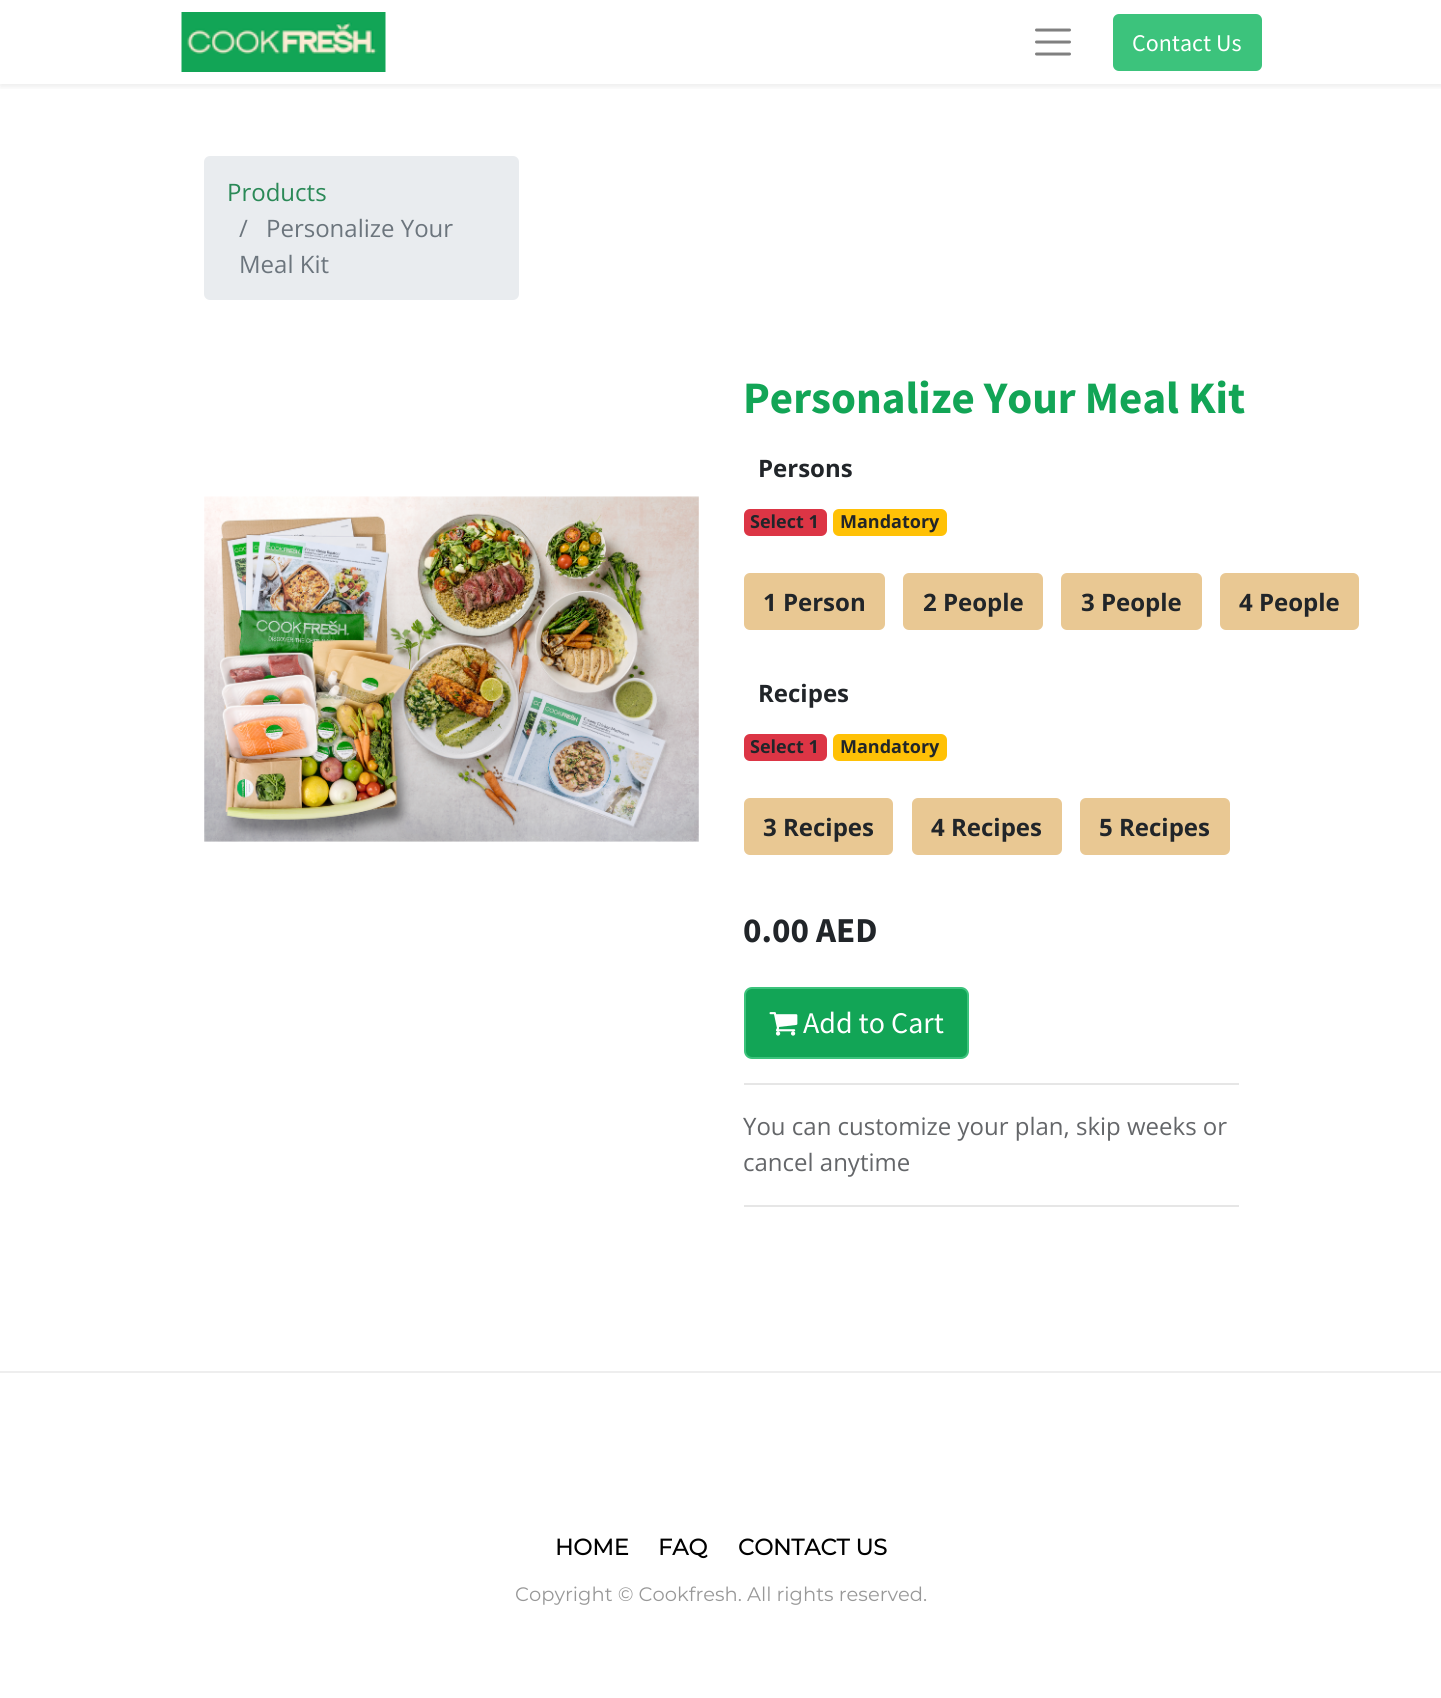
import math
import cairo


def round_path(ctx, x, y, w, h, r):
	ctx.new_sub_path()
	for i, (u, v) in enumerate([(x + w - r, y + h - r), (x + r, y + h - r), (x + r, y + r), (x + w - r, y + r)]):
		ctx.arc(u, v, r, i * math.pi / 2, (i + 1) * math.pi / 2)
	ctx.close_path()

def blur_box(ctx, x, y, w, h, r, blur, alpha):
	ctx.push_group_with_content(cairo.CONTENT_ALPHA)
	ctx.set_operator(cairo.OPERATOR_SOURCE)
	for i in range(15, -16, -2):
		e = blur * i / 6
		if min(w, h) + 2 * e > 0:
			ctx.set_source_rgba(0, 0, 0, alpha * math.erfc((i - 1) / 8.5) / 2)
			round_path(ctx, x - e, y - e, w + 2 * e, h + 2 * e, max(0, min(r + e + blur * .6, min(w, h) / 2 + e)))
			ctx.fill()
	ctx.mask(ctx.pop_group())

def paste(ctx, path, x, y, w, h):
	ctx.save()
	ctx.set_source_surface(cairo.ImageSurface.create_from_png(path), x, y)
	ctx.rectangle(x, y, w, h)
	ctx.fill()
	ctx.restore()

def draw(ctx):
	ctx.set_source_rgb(1, 1, 1)
	ctx.paint()
	ctx.save()
	ctx.rectangle(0, 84, 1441, 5)
	ctx.clip()
	ctx.set_source_rgb(0, 0, 0)
	blur_box(ctx, 0, 3, 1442, 84, 0, 3, 0.07)
	ctx.restore()
	paste(ctx, 'media/1.png', 181, 12, 205, 60)
	ctx.new_path()
	ctx.move_to(1036.5, 30)
	ctx.line_to(1069.5, 30)
	ctx.move_to(1036.5, 42)
	ctx.line_to(1069.5, 42)
	ctx.move_to(1036.5, 54)
	ctx.line_to(1069.5, 54)
	ctx.set_source_rgb(0.502, 0.502, 0.502)
	ctx.set_line_width(3)
	ctx.set_line_cap(cairo.LINE_CAP_ROUND)
	ctx.stroke()
	ctx.set_source_rgb(0.235, 0.765, 0.486)
	round_path(ctx, 1114, 15, 147, 55, 5)
	ctx.fill_preserve()
	ctx.set_line_width(2)
	ctx.set_line_cap(cairo.LINE_CAP_BUTT)
	ctx.stroke()
	ctx.select_font_face('Source Sans Pro')
	ctx.set_font_size(24)
	ctx.set_source_rgb(1, 1, 1)
	ctx.move_to(1132, 51)
	ctx.show_text('Contact Us')
	ctx.set_source_rgb(0.914, 0.925, 0.937)
	round_path(ctx, 204, 156, 315, 144, 6)
	ctx.fill()
	ctx.select_font_face('Open Sans')
	ctx.set_source_rgb(0.165, 0.537, 0.341)
	ctx.move_to(227, 201)
	ctx.show_text('Products')
	ctx.set_source_rgb(0.424, 0.459, 0.49)
	for x, y, s in [
		(239, 237, '/'),
		(266, 237, 'Personalize Your'),
		(239, 273, 'Meal Kit'),
	]:
		ctx.move_to(x, y)
		ctx.show_text(s)
	paste(ctx, 'media/2.png', 204, 496, 495, 346)
	ctx.select_font_face('Source Sans Pro', cairo.FONT_SLANT_NORMAL, cairo.FONT_WEIGHT_BOLD)
	ctx.set_font_size(45)
	ctx.set_source_rgb(0.071, 0.647, 0.337)
	ctx.move_to(743, 413)
	ctx.show_text('Personalize Your Meal Kit')
	ctx.select_font_face('Open Sans', cairo.FONT_SLANT_NORMAL, cairo.FONT_WEIGHT_BOLD)
	ctx.set_font_size(24)
	ctx.set_source_rgb(0.129, 0.145, 0.161)
	ctx.move_to(758, 477)
	ctx.show_text('Persons')
	ctx.set_source_rgb(0.863, 0.208, 0.271)
	round_path(ctx, 744, 509, 83, 27, 6)
	ctx.fill()
	ctx.set_font_size(18)
	ctx.set_source_rgb(0.129, 0.145, 0.161)
	ctx.move_to(750, 528)
	ctx.show_text('Select 1')
	ctx.set_source_rgb(1, 0.757, 0.027)
	round_path(ctx, 833, 509, 114, 27, 6)
	ctx.fill()
	ctx.set_source_rgb(0.129, 0.145, 0.161)
	ctx.move_to(840, 528)
	ctx.show_text('Mandatory')
	ctx.set_source_rgb(0.914, 0.784, 0.576)
	round_path(ctx, 745, 574, 139, 55, 5)
	ctx.fill_preserve()
	ctx.stroke()
	ctx.set_font_size(24)
	ctx.set_source_rgb(0.129, 0.145, 0.161)
	ctx.move_to(763, 611)
	ctx.show_text('1 Person')
	ctx.set_source_rgb(0.914, 0.784, 0.576)
	round_path(ctx, 904, 574, 138, 55, 5)
	ctx.fill_preserve()
	ctx.stroke()
	ctx.set_source_rgb(0.129, 0.145, 0.161)
	ctx.move_to(923, 611)
	ctx.show_text('2 People')
	ctx.set_source_rgb(0.914, 0.784, 0.576)
	round_path(ctx, 1062, 574, 139, 55, 5)
	ctx.fill_preserve()
	ctx.stroke()
	ctx.set_source_rgb(0.129, 0.145, 0.161)
	ctx.move_to(1081, 611)
	ctx.show_text('3 People')
	ctx.set_source_rgb(0.914, 0.784, 0.576)
	round_path(ctx, 1221, 574, 137, 55, 5)
	ctx.fill_preserve()
	ctx.stroke()
	ctx.set_source_rgb(0.129, 0.145, 0.161)
	ctx.move_to(1239, 611)
	ctx.show_text('4 People')
	ctx.move_to(758, 702)
	ctx.show_text('Recipes')
	ctx.set_source_rgb(0.863, 0.208, 0.271)
	round_path(ctx, 744, 734, 83, 27, 6)
	ctx.fill()
	ctx.set_font_size(18)
	ctx.set_source_rgb(0.129, 0.145, 0.161)
	ctx.move_to(750, 753)
	ctx.show_text('Select 1')
	ctx.set_source_rgb(1, 0.757, 0.027)
	round_path(ctx, 833, 734, 114, 27, 6)
	ctx.fill()
	ctx.set_source_rgb(0.129, 0.145, 0.161)
	ctx.move_to(840, 753)
	ctx.show_text('Mandatory')
	ctx.set_source_rgb(0.914, 0.784, 0.576)
	round_path(ctx, 745, 799, 147, 55, 5)
	ctx.fill_preserve()
	ctx.stroke()
	ctx.set_font_size(24)
	ctx.set_source_rgb(0.129, 0.145, 0.161)
	ctx.move_to(763, 836)
	ctx.show_text('3 Recipes')
	ctx.set_source_rgb(0.914, 0.784, 0.576)
	round_path(ctx, 913, 799, 148, 55, 5)
	ctx.fill_preserve()
	ctx.stroke()
	ctx.set_source_rgb(0.129, 0.145, 0.161)
	ctx.move_to(931, 836)
	ctx.show_text('4 Recipes')
	ctx.set_source_rgb(0.914, 0.784, 0.576)
	round_path(ctx, 1081, 799, 148, 55, 5)
	ctx.fill_preserve()
	ctx.stroke()
	ctx.set_source_rgb(0.129, 0.145, 0.161)
	ctx.move_to(1099, 836)
	ctx.show_text('5 Recipes')
	ctx.select_font_face('Source Sans Pro', cairo.FONT_SLANT_NORMAL, cairo.FONT_WEIGHT_BOLD)
	ctx.set_font_size(35)
	ctx.move_to(743, 942)
	ctx.show_text('0.00 AED')
	ctx.set_source_rgb(0.071, 0.647, 0.337)
	round_path(ctx, 745, 988, 223, 70, 7)
	ctx.fill_preserve()
	ctx.set_source_rgb(0.235, 0.765, 0.486)
	ctx.stroke()
	paste(ctx, 'media/3.png', 769, 1012, 29, 24)
	ctx.select_font_face('Source Sans Pro')
	ctx.set_font_size(30)
	ctx.set_source_rgb(1, 1, 1)
	ctx.move_to(803, 1033)
	ctx.show_text('Add to Cart')
	ctx.set_source_rgb(0.902, 0.902, 0.902)
	ctx.rectangle(744, 1083, 495, 2)
	ctx.fill()
	ctx.select_font_face('Open Sans')
	ctx.set_font_size(24)
	ctx.set_source_rgb(0.392, 0.4, 0.412)
	ctx.move_to(743, 1135)
	ctx.show_text('You can customize your plan, skip weeks or')
	ctx.move_to(743, 1171)
	ctx.show_text('cancel anytime')
	ctx.set_source_rgb(0.902, 0.902, 0.902)
	ctx.rectangle(744, 1205, 495, 2)
	ctx.fill()
	ctx.set_source_rgb(0.933, 0.933, 0.933)
	ctx.rectangle(0, 1371, 1441, 2)
	ctx.fill()
	ctx.select_font_face('Montserrat', cairo.FONT_SLANT_NORMAL, cairo.FONT_WEIGHT_BOLD)
	ctx.set_font_size(22.5)
	ctx.set_source_rgb(0, 0, 0)
	for x, y, s in [
		(555, 1555, 'HOME'),
		(658, 1555, 'FAQ'),
		(738, 1555, 'CONTACT US'),
	]:
		ctx.move_to(x, y)
		ctx.show_text(s)
	ctx.select_font_face('Montserrat')
	ctx.set_font_size(19.5)
	ctx.set_source_rgb(0.596, 0.596, 0.596)
	ctx.move_to(515, 1601)
	ctx.show_text('Copyright © Cookfresh. All rights reserved.')


surface = cairo.ImageSurface(cairo.FORMAT_RGB24, 1441, 1698)
ctx = cairo.Context(surface)
options = cairo.FontOptions()
options.set_hint_metrics(cairo.HINT_METRICS_OFF)
options.set_hint_style(cairo.HINT_STYLE_NONE)
ctx.set_font_options(options)
ctx.set_miter_limit(4)
draw(ctx)
surface.write_to_png('image.png')
